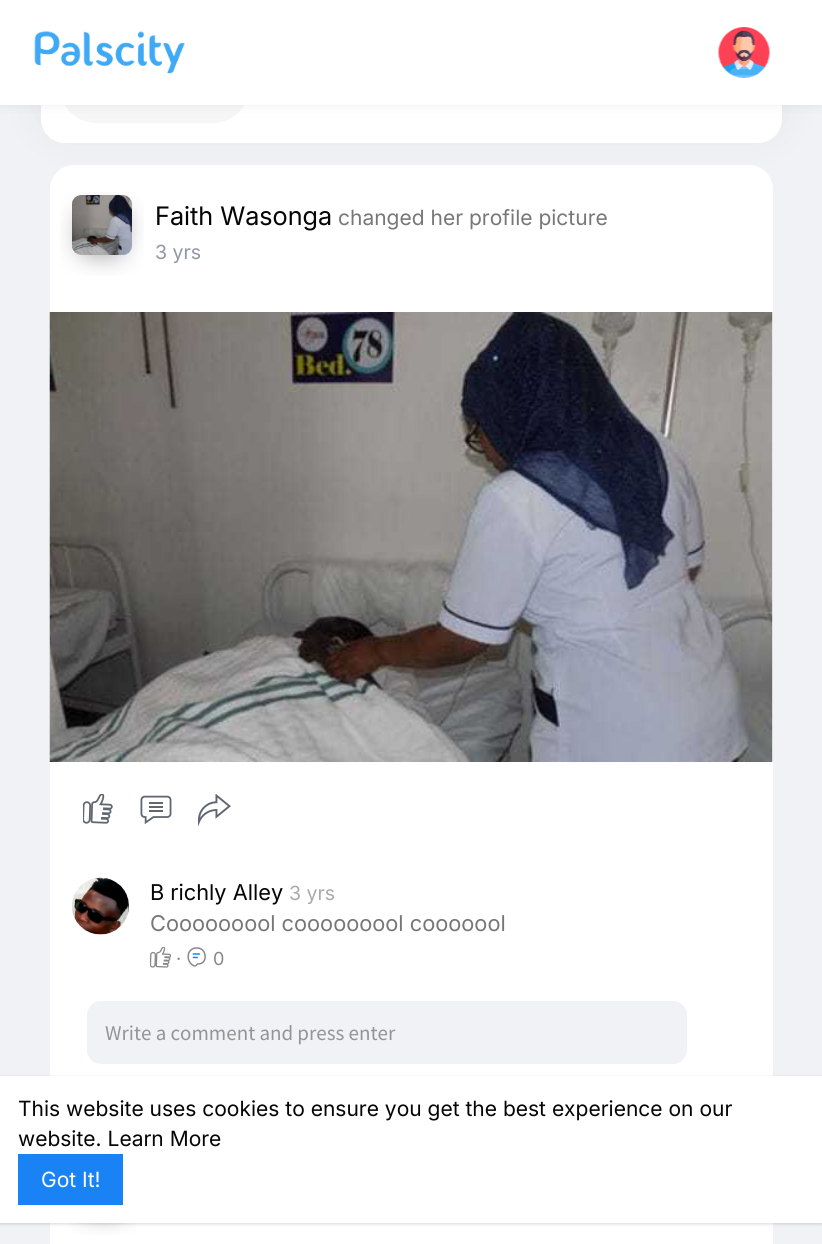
import math
import cairo


def round_path(ctx, x, y, w, h, r):
	ctx.new_sub_path()
	for i, (u, v) in enumerate([(x + w - r, y + h - r), (x + r, y + h - r), (x + r, y + r), (x + w - r, y + r)]):
		ctx.arc(u, v, r, i * math.pi / 2, (i + 1) * math.pi / 2)
	ctx.close_path()

def blur_box(ctx, x, y, w, h, r, blur, alpha):
	ctx.push_group_with_content(cairo.CONTENT_ALPHA)
	ctx.set_operator(cairo.OPERATOR_SOURCE)
	for i in range(15, -16, -2):
		e = blur * i / 6
		if min(w, h) + 2 * e > 0:
			ctx.set_source_rgba(0, 0, 0, alpha * math.erfc((i - 1) / 8.5) / 2)
			round_path(ctx, x - e, y - e, w + 2 * e, h + 2 * e, max(0, min(r + e + blur * .6, min(w, h) / 2 + e)))
			ctx.fill()
	ctx.mask(ctx.pop_group())

def paste(ctx, path, x, y, w, h):
	ctx.save()
	ctx.set_source_surface(cairo.ImageSurface.create_from_png(path), x, y)
	ctx.rectangle(x, y, w, h)
	ctx.fill()
	ctx.restore()

def draw(ctx):
	ctx.set_source_rgb(0.941, 0.949, 0.961)
	ctx.paint()
	ctx.set_source_rgb(1, 1, 1)
	round_path(ctx, 50, 165, 723, 929, 24)
	ctx.fill()
	paste(ctx, 'media/3.png', 60, 192, 84, 84)
	paste(ctx, 'media/4.png', 72, 195, 60, 60)
	ctx.set_source_rgb(0, 0, 0)
	blur_box(ctx, 41, 23, 741, 111, 24, 22.5, 0.06)
	ctx.set_source_rgb(1, 1, 1)
	round_path(ctx, 41, 32, 741, 111, 24)
	ctx.fill()
	ctx.set_source_rgb(0.961, 0.961, 0.961)
	round_path(ctx, 60, 51, 189, 72, 36)
	ctx.fill()
	ctx.set_source_rgb(0, 0, 0)
	blur_box(ctx, 0, 2, 822, 105, 0, 4.5, 0.05)
	ctx.set_source_rgb(1, 1, 1)
	ctx.rectangle(0, 0, 822, 105)
	ctx.fill()
	paste(ctx, 'media/1.png', 34, 31, 151, 43)
	paste(ctx, 'media/2.png', 718, 27, 52, 51)
	ctx.select_font_face('Inter')
	ctx.set_font_size(25.5)
	ctx.set_source_rgb(0.02, 0.02, 0.02)
	ctx.move_to(155, 225)
	ctx.show_text('Faith Wasonga')
	ctx.select_font_face('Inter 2')
	ctx.set_font_size(21)
	ctx.set_source_rgb(0.467, 0.467, 0.467)
	ctx.move_to(338, 225)
	ctx.show_text('changed her profile picture')
	ctx.set_font_size(19.5)
	ctx.set_source_rgb(0.569, 0.592, 0.639)
	ctx.move_to(155, 259)
	ctx.show_text('3 yrs')
	paste(ctx, 'media/5.png', 49, 312, 724, 450)
	paste(ctx, 'media/6.png', 83, 794, 30, 30)
	paste(ctx, 'media/7.png', 140, 795, 32, 29)
	paste(ctx, 'media/8.png', 198, 794, 33, 33)
	paste(ctx, 'media/9.png', 72, 877, 57, 58)
	ctx.set_font_size(21.75)
	ctx.set_source_rgb(0.02, 0.02, 0.02)
	ctx.move_to(150, 900)
	ctx.show_text('B richly Alley')
	ctx.set_font_size(19.5)
	ctx.set_source_rgb(0.667, 0.667, 0.667)
	ctx.move_to(289, 900)
	ctx.show_text('3 yrs')
	ctx.set_font_size(21.75)
	ctx.set_source_rgb(0.467, 0.467, 0.467)
	ctx.move_to(150, 931)
	ctx.show_text('Cooooooool cooooooool cooooool')
	paste(ctx, 'media/10.png', 150, 947, 21, 21)
	ctx.set_font_size(18)
	ctx.set_source_rgb(0.533, 0.533, 0.533)
	ctx.move_to(176, 965)
	ctx.show_text('·')
	paste(ctx, 'media/11.png', 187, 947, 19, 20)
	ctx.move_to(213, 965)
	ctx.show_text('0')
	ctx.set_source_rgb(0.941, 0.949, 0.961)
	round_path(ctx, 87, 1001, 600, 63, 14)
	ctx.fill()
	ctx.select_font_face('Source Sans Pro')
	ctx.set_font_size(21)
	ctx.set_source_rgb(0.576, 0.58, 0.584)
	ctx.move_to(105, 1040)
	ctx.show_text('Write a comment and press enter')
	ctx.set_source_rgb(1, 1, 1)
	ctx.rectangle(50, 1223, 723, 21)
	ctx.fill()
	paste(ctx, 'media/12.png', 68, 1223, 68, 12)
	ctx.set_source_rgb(0, 0, 0)
	blur_box(ctx, 0, 1077, 822, 147, 0, 1.5, 0.06)
	blur_box(ctx, 0, 1077, 822, 147, 0, 2, 0.1)
	ctx.set_source_rgb(1, 1, 1)
	ctx.rectangle(0, 1076, 822, 147)
	ctx.fill()
	ctx.select_font_face('Inter 2')
	ctx.set_source_rgb(0.02, 0.02, 0.02)
	ctx.move_to(18, 1116)
	ctx.show_text('This website uses cookies to ensure you get the best experience on our')
	ctx.move_to(18, 1146)
	ctx.show_text('website. Learn More')
	ctx.set_source_rgb(0.098, 0.514, 0.961)
	ctx.rectangle(18, 1154, 105, 51)
	ctx.fill()
	ctx.set_source_rgb(1, 1, 1)
	ctx.move_to(41, 1187)
	ctx.show_text('Got It!')


surface = cairo.ImageSurface(cairo.FORMAT_RGB24, 822, 1244)
ctx = cairo.Context(surface)
options = cairo.FontOptions()
options.set_hint_metrics(cairo.HINT_METRICS_OFF)
options.set_hint_style(cairo.HINT_STYLE_NONE)
ctx.set_font_options(options)
ctx.set_miter_limit(4)
draw(ctx)
surface.write_to_png('image.png')
